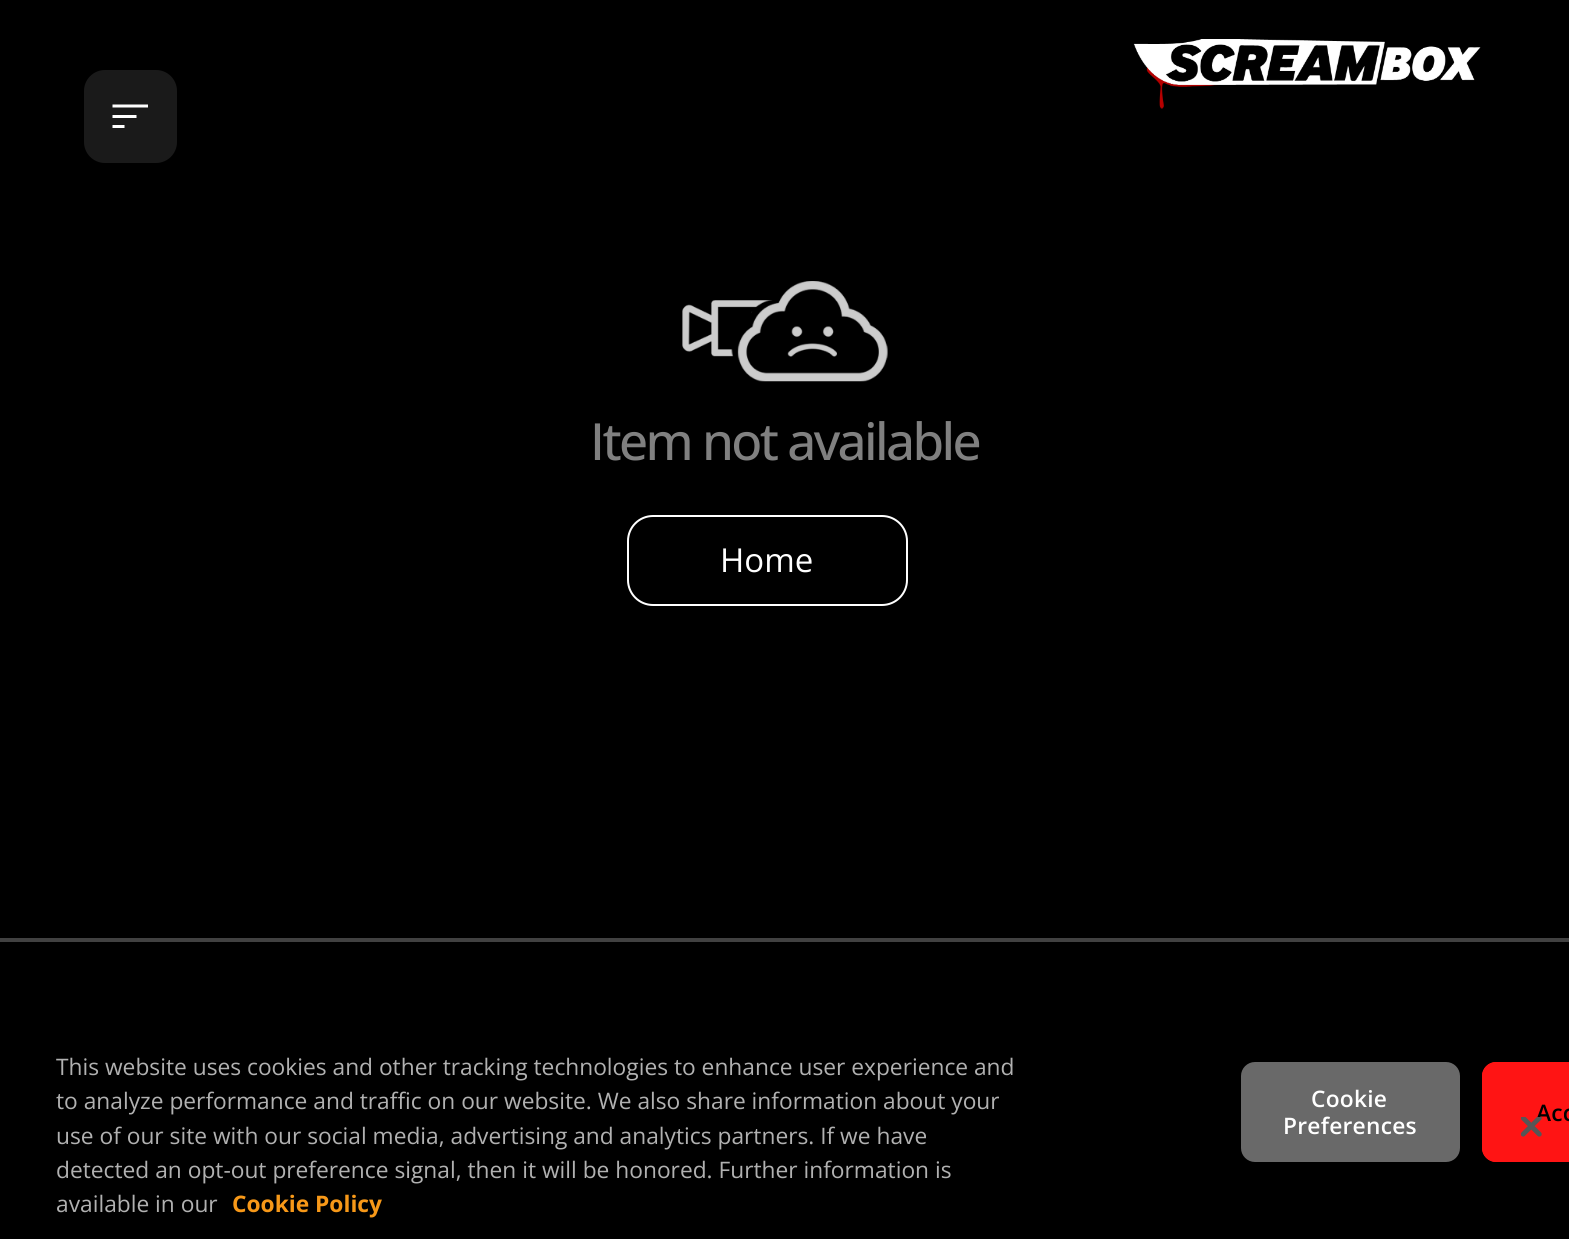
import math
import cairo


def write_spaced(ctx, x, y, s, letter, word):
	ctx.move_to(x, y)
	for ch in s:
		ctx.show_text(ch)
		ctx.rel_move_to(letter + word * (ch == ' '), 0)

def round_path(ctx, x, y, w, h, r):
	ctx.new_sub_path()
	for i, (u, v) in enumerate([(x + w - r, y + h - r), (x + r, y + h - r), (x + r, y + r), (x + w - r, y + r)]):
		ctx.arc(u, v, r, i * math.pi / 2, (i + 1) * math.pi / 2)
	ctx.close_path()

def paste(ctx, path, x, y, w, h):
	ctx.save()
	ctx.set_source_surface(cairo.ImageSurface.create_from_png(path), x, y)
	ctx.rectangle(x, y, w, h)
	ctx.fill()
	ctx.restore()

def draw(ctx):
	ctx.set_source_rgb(0, 0, 0)
	ctx.paint()
	ctx.set_source_rgb(0.102, 0.102, 0.102)
	round_path(ctx, 84, 70, 93, 93, 21)
	ctx.fill()
	ctx.set_source_rgb(1, 1, 1)
	ctx.new_path()
	ctx.move_to(112.5, 128)
	ctx.line_to(112.5, 125)
	ctx.line_to(124.5, 125)
	ctx.line_to(124.5, 128)
	ctx.close_path()
	ctx.move_to(112.5, 118)
	ctx.line_to(112.5, 115)
	ctx.line_to(136.5, 115)
	ctx.line_to(136.5, 118)
	ctx.close_path()
	ctx.move_to(112.5, 107.5)
	ctx.line_to(112.5, 104.5)
	ctx.line_to(148, 104.5)
	ctx.line_to(148, 107.5)
	ctx.close_path()
	ctx.fill()
	paste(ctx, 'media/1.png', 1133, 39, 348, 70)
	paste(ctx, 'media/2.png', 682, 281, 206, 101)
	ctx.select_font_face('Open Sans Medium')
	ctx.set_font_size(51.25)
	ctx.set_source_rgb(0.502, 0.502, 0.502)
	write_spaced(ctx, 590, 460, 'Item not available', -2.6, 0)
	round_path(ctx, 628, 516, 279, 89, 25)
	ctx.set_source_rgb(1, 1, 1)
	ctx.stroke()
	ctx.select_font_face('Open Sans')
	ctx.set_font_size(33)
	ctx.move_to(720, 572)
	ctx.show_text('Home')
	ctx.set_source_rgb(0.255, 0.255, 0.255)
	ctx.rectangle(0, 938, 1569, 4)
	ctx.fill()
	ctx.set_font_size(22.75)
	ctx.set_source_rgb(0.694, 0.694, 0.694)
	for x, y, s in [
		(56, 1075, 'This website uses cookies and other tracking technologies to enhance user experience and'),
		(56, 1109, 'to analyze performance and traffic on our website. We also share information about your'),
		(56, 1144, 'use of our site with our social media, advertising and analytics partners. If we have'),
		(56, 1178, 'detected an opt-out preference signal, then it will be honored. Further information is'),
		(56, 1212, 'available in our'),
	]:
		ctx.move_to(x, y)
		ctx.show_text(s)
	ctx.select_font_face('Open Sans', cairo.FONT_SLANT_NORMAL, cairo.FONT_WEIGHT_BOLD)
	ctx.set_source_rgb(0.965, 0.596, 0.094)
	ctx.move_to(232, 1212)
	ctx.show_text('Cookie Policy')
	ctx.set_source_rgb(0.412, 0.412, 0.412)
	round_path(ctx, 1242, 1063, 217, 98, 13)
	ctx.fill_preserve()
	ctx.stroke()
	ctx.select_font_face('Open Sans SemiBold')
	ctx.set_source_rgb(1, 1, 1)
	write_spaced(ctx, 1311, 1107, 'Cookie', 0.25, 0)
	write_spaced(ctx, 1283, 1134, 'Preferences', 0.25, 0)
	ctx.set_source_rgb(1, 0.082, 0.082)
	ctx.new_path()
	ctx.move_to(1496, 1062)
	ctx.line_to(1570, 1062)
	ctx.line_to(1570, 1162)
	ctx.line_to(1496, 1162)
	ctx.curve_to(1488.5, 1162, 1482, 1155.5, 1482, 1148)
	ctx.line_to(1482, 1076)
	ctx.curve_to(1482, 1068.5, 1488.5, 1062, 1496, 1062)
	ctx.close_path()
	ctx.fill()
	round_path(ctx, 1483, 1063, 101, 98, 13)
	ctx.stroke()
	ctx.set_source_rgb(0, 0, 0)
	write_spaced(ctx, 1536, 1121, 'Acc', 0.25, 0)
	paste(ctx, 'media/3.png', 1521, 1117, 21, 20)


surface = cairo.ImageSurface(cairo.FORMAT_RGB24, 1569, 1239)
ctx = cairo.Context(surface)
options = cairo.FontOptions()
options.set_hint_metrics(cairo.HINT_METRICS_OFF)
options.set_hint_style(cairo.HINT_STYLE_NONE)
ctx.set_font_options(options)
ctx.set_miter_limit(4)
draw(ctx)
surface.write_to_png('image.png')
